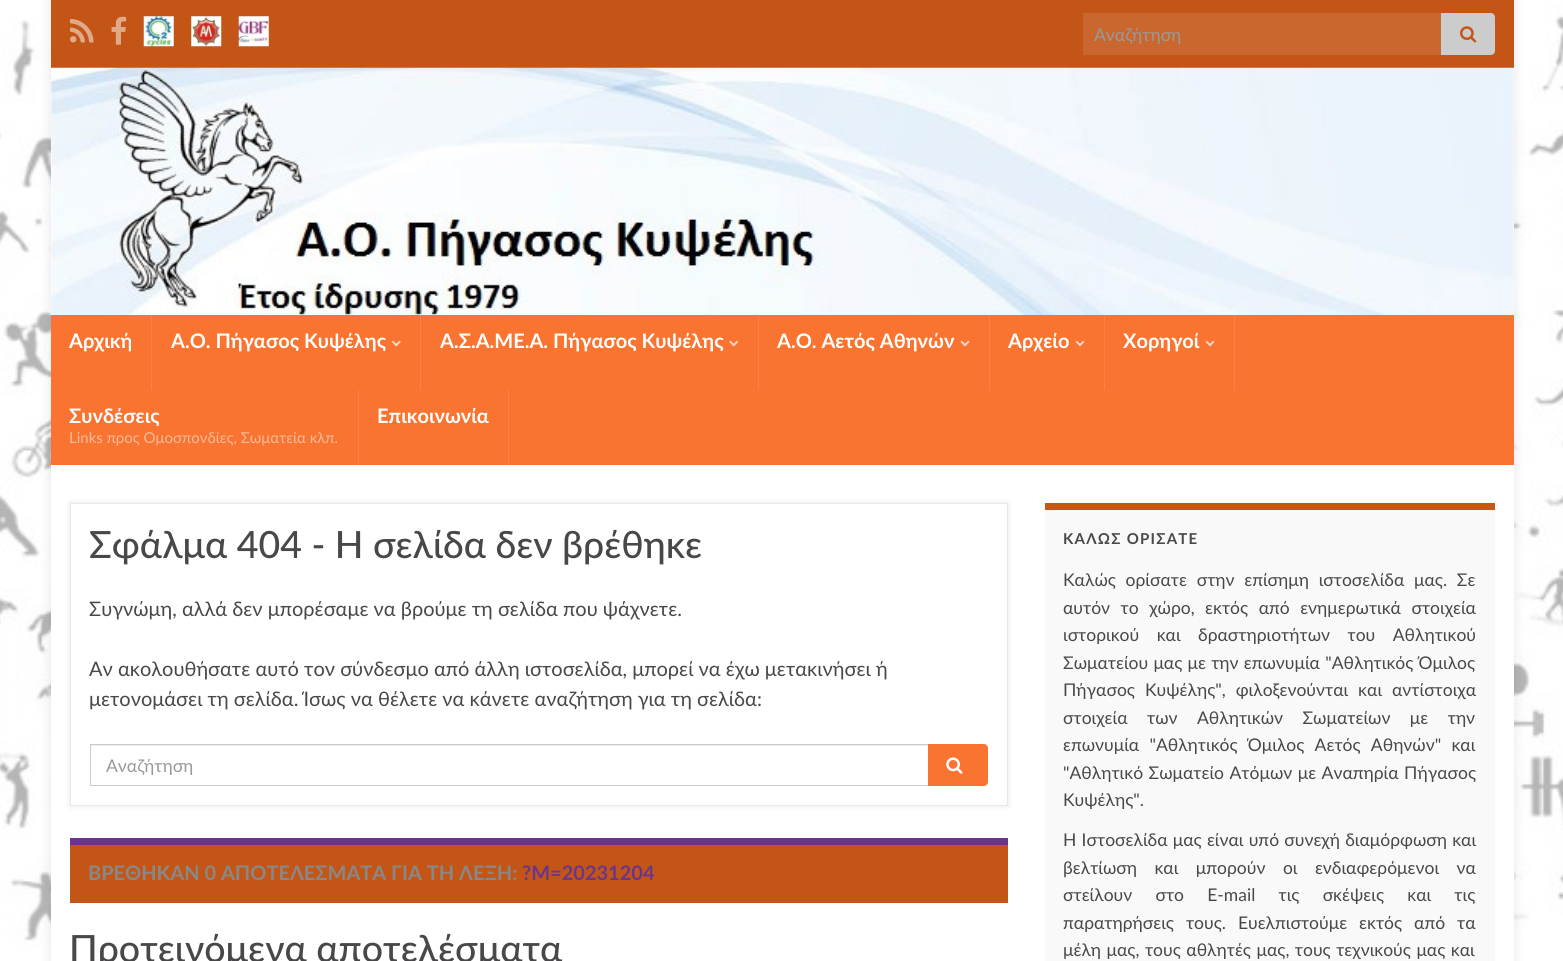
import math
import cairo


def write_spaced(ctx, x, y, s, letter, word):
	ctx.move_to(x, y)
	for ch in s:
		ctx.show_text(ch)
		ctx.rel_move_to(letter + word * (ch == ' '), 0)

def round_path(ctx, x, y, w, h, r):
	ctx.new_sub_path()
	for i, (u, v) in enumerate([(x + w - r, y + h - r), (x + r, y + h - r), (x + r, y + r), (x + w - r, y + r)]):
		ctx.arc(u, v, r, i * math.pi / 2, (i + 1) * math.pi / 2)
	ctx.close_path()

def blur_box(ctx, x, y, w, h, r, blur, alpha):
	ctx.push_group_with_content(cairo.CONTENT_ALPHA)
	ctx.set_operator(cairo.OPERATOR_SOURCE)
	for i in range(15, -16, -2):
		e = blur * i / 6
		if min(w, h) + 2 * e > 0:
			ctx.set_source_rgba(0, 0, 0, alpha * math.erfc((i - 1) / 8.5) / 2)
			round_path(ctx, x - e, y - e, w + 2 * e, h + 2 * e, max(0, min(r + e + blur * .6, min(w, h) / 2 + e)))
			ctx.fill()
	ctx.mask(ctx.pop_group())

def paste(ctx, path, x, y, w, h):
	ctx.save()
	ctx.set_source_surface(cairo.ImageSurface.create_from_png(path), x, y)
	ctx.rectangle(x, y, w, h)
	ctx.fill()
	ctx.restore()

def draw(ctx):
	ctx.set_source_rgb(1, 1, 1)
	ctx.paint()
	paste(ctx, 'media/1.png', 0, 3, 1563, 945)
	ctx.set_source_rgb(0, 0, 0)
	blur_box(ctx, 51, 0, 1463, 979, 0, 6, 0.1)
	ctx.set_source_rgb(0.765, 0.337, 0.09)
	ctx.rectangle(51, 0, 1463, 68)
	ctx.fill()
	paste(ctx, 'media/2.png', 70, 19, 24, 24)
	paste(ctx, 'media/3.png', 111, 16, 16, 29)
	paste(ctx, 'media/4.png', 143, 16, 31, 31)
	paste(ctx, 'media/5.png', 191, 16, 31, 31)
	paste(ctx, 'media/6.png', 238, 16, 31, 31)
	ctx.set_source_rgb(0.788, 0.404, 0.18)
	ctx.rectangle(1083, 13, 358, 42)
	ctx.fill()
	ctx.select_font_face('Lato')
	ctx.set_font_size(17.5)
	ctx.set_source_rgb(0.6, 0.6, 0.6)
	ctx.move_to(1094, 41)
	ctx.show_text('Αναζήτηση')
	ctx.set_source_rgb(0.8, 0.8, 0.8)
	ctx.new_path()
	ctx.move_to(1441, 13)
	ctx.line_to(1491, 13)
	ctx.curve_to(1493, 13, 1495, 15, 1495, 17)
	ctx.line_to(1495, 51)
	ctx.curve_to(1495, 53, 1493, 55, 1491, 55)
	ctx.line_to(1441, 55)
	ctx.close_path()
	ctx.fill()
	paste(ctx, 'media/7.png', 1460, 26, 17, 17)
	ctx.set_source_rgb(1, 1, 1)
	ctx.rectangle(51, 68, 1463, 247)
	ctx.fill()
	paste(ctx, 'media/8.png', 51, 67, 1463, 248)
	ctx.set_source_rgb(0.973, 0.455, 0.192)
	ctx.rectangle(51, 315, 1463, 150)
	ctx.fill()
	ctx.set_source_rgb(0.976, 0.51, 0.275)
	ctx.rectangle(151, 315, 1, 75)
	ctx.fill()
	ctx.select_font_face('Lato', cairo.FONT_SLANT_NORMAL, cairo.FONT_WEIGHT_BOLD)
	ctx.set_font_size(20)
	ctx.set_source_rgb(1, 1, 1)
	ctx.move_to(69, 348)
	ctx.show_text('Αρχική')
	ctx.set_source_rgb(0.976, 0.51, 0.275)
	ctx.rectangle(420, 315, 1, 75)
	ctx.fill()
	ctx.set_source_rgb(1, 1, 1)
	ctx.move_to(171, 348)
	ctx.show_text('Α.Ο. Πήγασος Κυψέλης')
	paste(ctx, 'media/9.png', 391, 340, 10, 7)
	ctx.set_source_rgb(0.976, 0.51, 0.275)
	ctx.rectangle(758, 315, 1, 75)
	ctx.fill()
	ctx.set_source_rgb(1, 1, 1)
	ctx.move_to(440, 348)
	ctx.show_text('Α.Σ.Α.ME.Α. Πήγασος Κυψέλης')
	paste(ctx, 'media/10.png', 729, 340, 10, 7)
	ctx.set_source_rgb(0.976, 0.51, 0.275)
	ctx.rectangle(989, 315, 1, 75)
	ctx.fill()
	ctx.set_source_rgb(1, 1, 1)
	ctx.move_to(777, 348)
	ctx.show_text('Α.Ο. Αετός Αθηνών')
	paste(ctx, 'media/11.png', 960, 340, 10, 7)
	ctx.set_source_rgb(0.976, 0.51, 0.275)
	ctx.rectangle(1104, 315, 1, 75)
	ctx.fill()
	ctx.set_source_rgb(1, 1, 1)
	ctx.move_to(1008, 348)
	ctx.show_text('Αρχείο')
	paste(ctx, 'media/11.png', 1075, 340, 10, 7)
	ctx.set_source_rgb(0.976, 0.51, 0.275)
	ctx.rectangle(1234, 315, 1, 75)
	ctx.fill()
	ctx.set_source_rgb(1, 1, 1)
	ctx.move_to(1123, 348)
	ctx.show_text('Χορηγοί')
	paste(ctx, 'media/11.png', 1205, 340, 10, 7)
	ctx.set_source_rgb(0.976, 0.51, 0.275)
	ctx.rectangle(358, 390, 1, 75)
	ctx.fill()
	ctx.set_source_rgb(1, 1, 1)
	ctx.move_to(69, 423)
	ctx.show_text('Συνδέσεις')
	ctx.select_font_face('Lato')
	ctx.set_font_size(15)
	ctx.set_source_rgb(0.988, 0.729, 0.596)
	ctx.move_to(69, 443)
	ctx.show_text('Links προς Ομοσπονδίες, Σωματεία κλπ.')
	ctx.set_source_rgb(0.976, 0.51, 0.275)
	ctx.rectangle(508, 390, 1, 75)
	ctx.fill()
	ctx.select_font_face('Lato', cairo.FONT_SLANT_NORMAL, cairo.FONT_WEIGHT_BOLD)
	ctx.set_font_size(20)
	ctx.set_source_rgb(1, 1, 1)
	ctx.move_to(377, 423)
	ctx.show_text('Επικοινωνία')
	ctx.rectangle(51, 465, 1463, 496)
	ctx.fill()
	ctx.set_source_rgb(0, 0, 0)
	blur_box(ctx, 70, 503, 938, 303, 0, 3, 0.1)
	ctx.set_source_rgb(1, 1, 1)
	ctx.rectangle(70.5, 503.5, 937, 302)
	ctx.fill_preserve()
	ctx.set_source_rgb(0.914, 0.91, 0.89)
	ctx.set_line_width(1)
	ctx.stroke()
	ctx.select_font_face('Lato Medium')
	ctx.set_font_size(37.5)
	ctx.set_source_rgb(0.29, 0.278, 0.294)
	ctx.move_to(89, 558)
	ctx.show_text('Σφάλμα 404 - Η σελίδα δεν βρέθηκε')
	ctx.select_font_face('Lato')
	ctx.set_font_size(20)
	for x, y, s in [
		(89, 616, 'Συγνώμη, αλλά δεν μπορέσαμε να βρούμε τη σελίδα που ψάχνετε.'),
		(89, 676, 'Αν ακολουθήσατε αυτό τον σύνδεσμο από άλλη ιστοσελίδα, μπορεί να έχω μετακινήσει ή'),
		(89, 706, 'μετονομάσει τη σελίδα. Ίσως να θέλετε να κάνετε αναζήτηση για τη σελίδα:'),
	]:
		ctx.move_to(x, y)
		ctx.show_text(s)
	ctx.set_source_rgb(0.925, 0.925, 0.925)
	ctx.rectangle(91, 745, 837, 1)
	ctx.fill()
	ctx.rectangle(90.5, 744.5, 838, 41)
	ctx.set_source_rgb(0.8, 0.8, 0.8)
	ctx.stroke()
	ctx.set_font_size(17.5)
	ctx.set_source_rgb(0.6, 0.6, 0.6)
	ctx.move_to(106, 772)
	ctx.show_text('Αναζήτηση')
	ctx.set_source_rgb(0.973, 0.455, 0.192)
	ctx.new_path()
	ctx.move_to(928, 744)
	ctx.line_to(984, 744)
	ctx.curve_to(986, 744, 988, 746, 988, 748)
	ctx.line_to(988, 782)
	ctx.curve_to(988, 784, 986, 786, 984, 786)
	ctx.line_to(928, 786)
	ctx.close_path()
	ctx.fill()
	paste(ctx, 'media/12.png', 946, 757, 17, 17)
	ctx.set_source_rgb(0.765, 0.337, 0.09)
	ctx.rectangle(70, 845, 938, 58)
	ctx.fill()
	ctx.set_source_rgb(0.42, 0.208, 0.537)
	ctx.rectangle(70, 838, 938, 7)
	ctx.fill()
	ctx.select_font_face('Lato', cairo.FONT_SLANT_NORMAL, cairo.FONT_WEIGHT_BOLD)
	ctx.set_font_size(20)
	ctx.set_source_rgb(0.533, 0.533, 0.533)
	ctx.move_to(88, 880)
	ctx.show_text('ΒΡΕΘΗΚΑΝ 0 ΑΠΟΤΕΛΕΣΜΑΤΑ ΓΙΑ ΤΗ ΛΕΞΗ:')
	ctx.set_source_rgb(0.42, 0.208, 0.537)
	ctx.move_to(522, 880)
	ctx.show_text('?M=20231204')
	ctx.select_font_face('Lato Medium')
	ctx.set_font_size(37.5)
	ctx.set_source_rgb(0.29, 0.278, 0.294)
	ctx.move_to(69, 962)
	ctx.show_text('Προτεινόμενα αποτελέσματα')
	ctx.set_source_rgb(0.976, 0.976, 0.976)
	ctx.rectangle(1045, 510, 450, 451)
	ctx.fill()
	ctx.set_source_rgb(0.765, 0.345, 0.09)
	ctx.rectangle(1045, 503, 450, 7)
	ctx.fill()
	ctx.select_font_face('Lato', cairo.FONT_SLANT_NORMAL, cairo.FONT_WEIGHT_BOLD)
	ctx.set_font_size(15)
	ctx.set_source_rgb(0.29, 0.278, 0.294)
	write_spaced(ctx, 1063, 544, 'ΚΑΛΩΣ ΟΡΙΣΑΤΕ', 1.25, 0)
	ctx.select_font_face('Lato')
	ctx.set_font_size(17.5)
	write_spaced(ctx, 1063, 586, 'Καλώς ορίσατε στην επίσημη ιστοσελίδα μας. Σε', 0, 5.25)
	write_spaced(ctx, 1063, 614, 'αυτόν το χώρο, εκτός από ενημερωτικά στοιχεία', 0, 6)
	write_spaced(ctx, 1063, 641, 'ιστορικού και δραστηριοτήτων του Αθλητικού', 0, 13)
	write_spaced(ctx, 1063, 669, 'Σωματείου μας με την επωνυμία "Αθλητικός Όμιλος', 0, 0.75)
	write_spaced(ctx, 1063, 696, 'Πήγασος Κυψέλης", φιλοξενούνται και αντίστοιχα', 0, 5.5)
	write_spaced(ctx, 1063, 724, 'στοιχεία των Αθλητικών Σωματείων με την', 0, 15)
	write_spaced(ctx, 1063, 751, 'επωνυμία "Αθλητικός Όμιλος Αετός Αθηνών" και', 0, 5.75)
	write_spaced(ctx, 1063, 779, '"Αθλητικό Σωματείο Ατόμων με Αναπηρία Πήγασος', 0, 1)
	ctx.move_to(1063, 806)
	ctx.show_text('Κυψέλης".')
	write_spaced(ctx, 1063, 846, 'Η Ιστοσελίδα μας είναι υπό συνεχή διαμόρφωση και', 0, 0.75)
	write_spaced(ctx, 1063, 874, 'βελτίωση και μπορούν οι ενδιαφερόμενοι να', 0, 13)
	write_spaced(ctx, 1063, 901, 'στείλουν στο E-mail τις σκέψεις και τις', 0, 18.75)
	write_spaced(ctx, 1063, 929, 'παρατηρήσεις τους. Ευελπιστούμε εκτός από τα', 0, 7.5)
	write_spaced(ctx, 1063, 956, 'μέλη μας, τους αθλητές μας, τους τεχνικούς μας και', 0, 1)


surface = cairo.ImageSurface(cairo.FORMAT_RGB24, 1563, 961)
ctx = cairo.Context(surface)
options = cairo.FontOptions()
options.set_hint_metrics(cairo.HINT_METRICS_OFF)
options.set_hint_style(cairo.HINT_STYLE_NONE)
ctx.set_font_options(options)
ctx.set_miter_limit(4)
draw(ctx)
surface.write_to_png('image.png')
